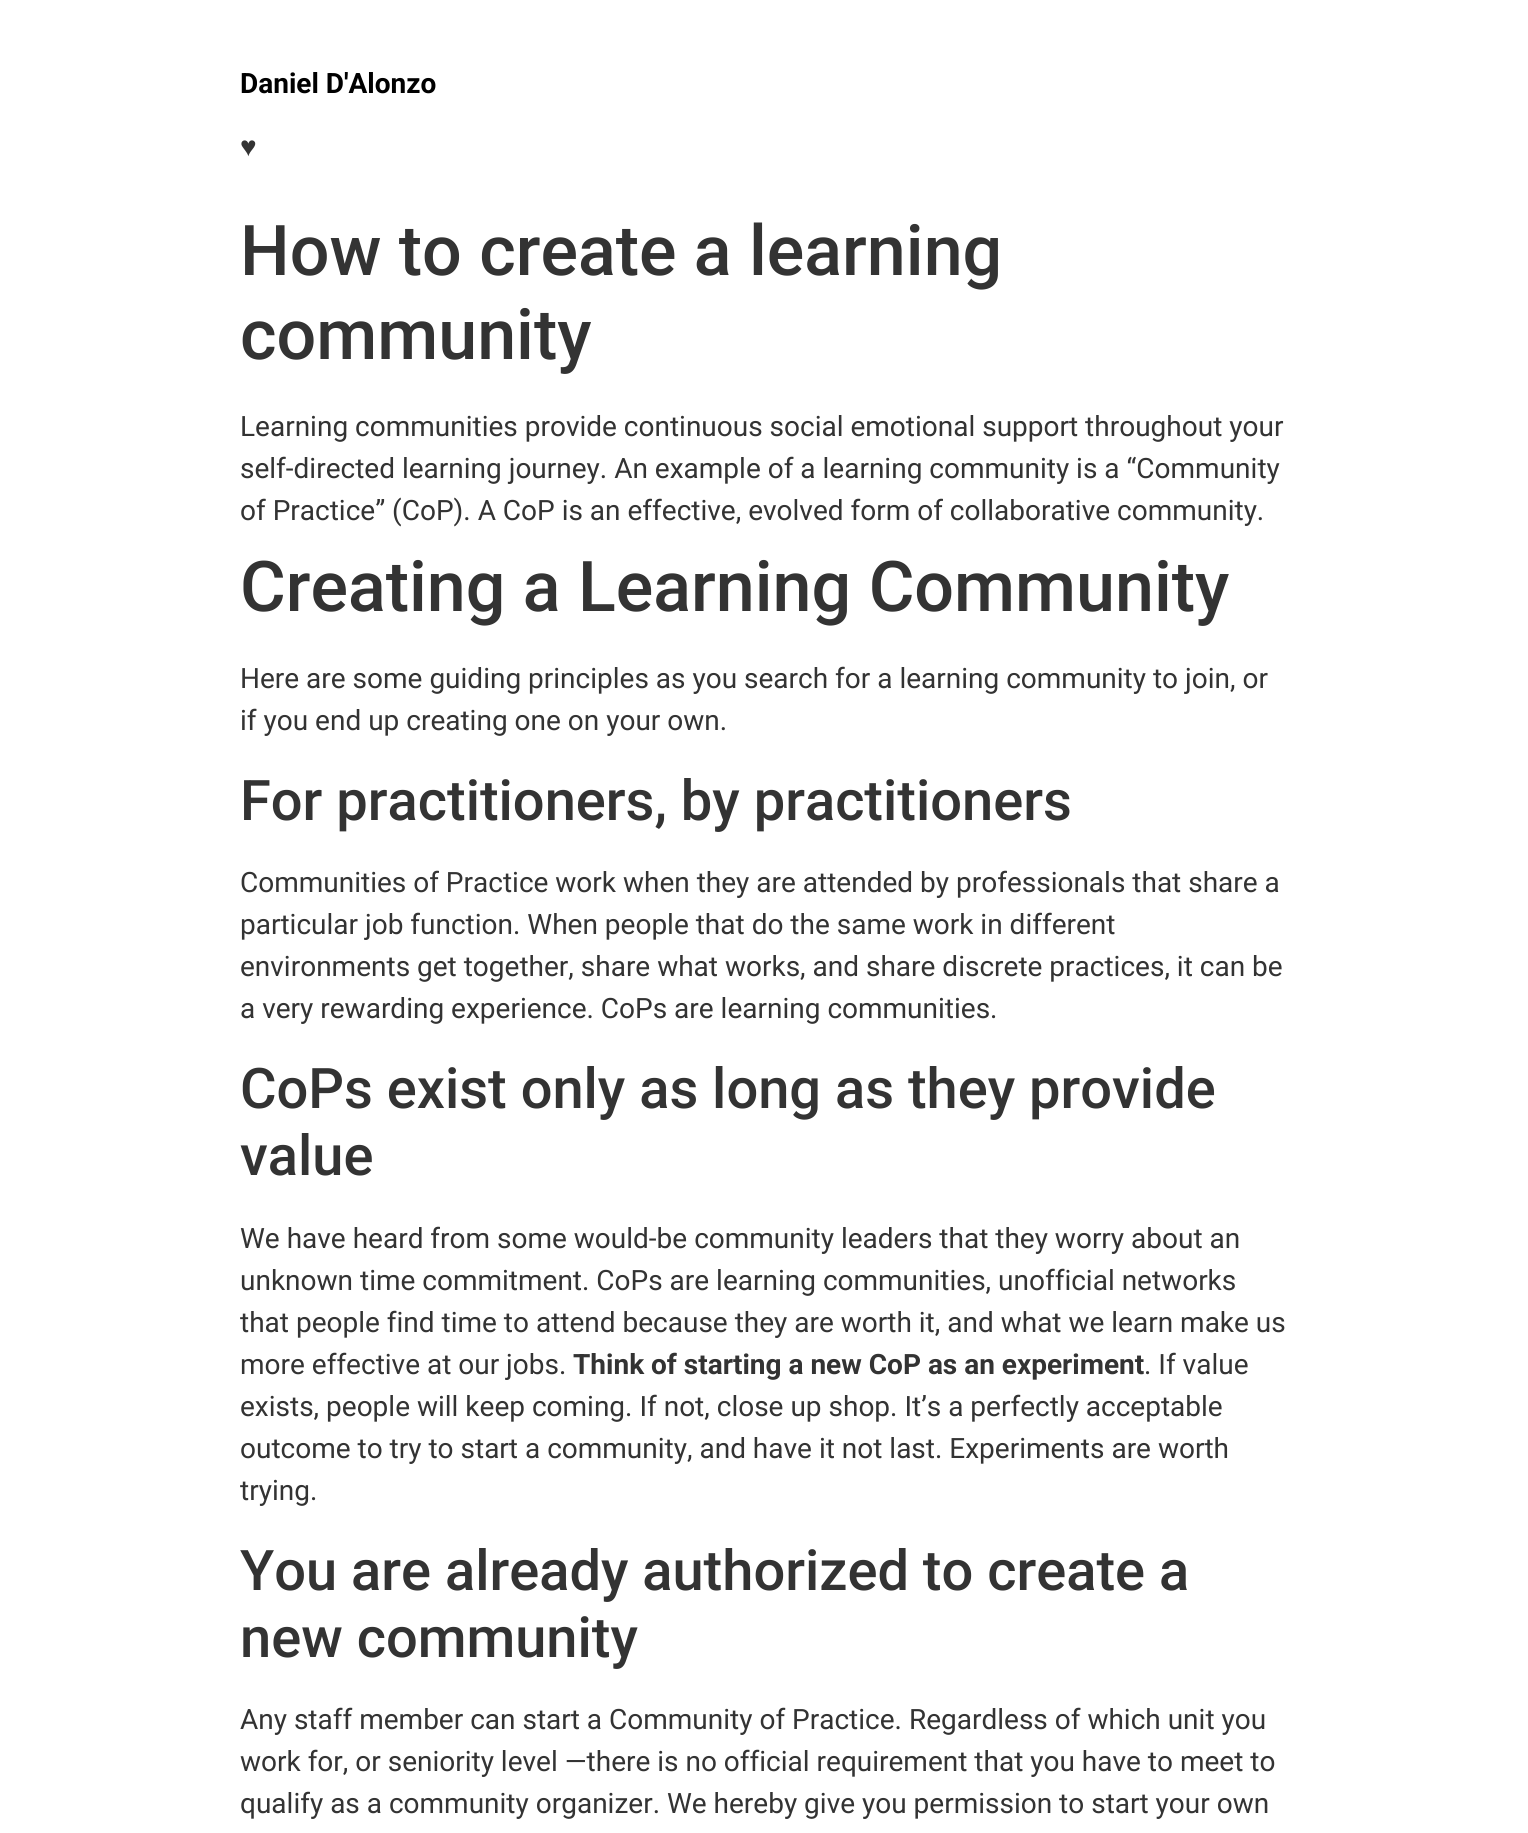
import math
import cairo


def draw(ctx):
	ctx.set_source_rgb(1, 1, 1)
	ctx.paint()
	ctx.select_font_face('Roboto', cairo.FONT_SLANT_NORMAL, cairo.FONT_WEIGHT_BOLD)
	ctx.set_font_size(28)
	ctx.set_source_rgb(0, 0, 0)
	ctx.move_to(240, 93)
	ctx.show_text('Daniel D\'Alonzo')
	ctx.select_font_face('Liberation Sans')
	ctx.set_source_rgb(0.2, 0.2, 0.2)
	ctx.move_to(240, 156)
	ctx.show_text('♥')
	ctx.select_font_face('Roboto Medium')
	ctx.set_font_size(70)
	ctx.move_to(240, 275)
	ctx.show_text('How to create a learning')
	ctx.move_to(240, 359)
	ctx.show_text('community')
	ctx.select_font_face('Roboto')
	ctx.set_font_size(28)
	for x, y, s in [
		(240, 436, 'Learning communities provide continuous social emotional support throughout your'),
		(240, 478, 'self-directed learning journey. An example of a learning community is a “Community'),
		(240, 520, 'of Practice” (CoP). A CoP is an effective, evolved form of collaborative community.'),
	]:
		ctx.move_to(x, y)
		ctx.show_text(s)
	ctx.select_font_face('Roboto Medium')
	ctx.set_font_size(70)
	ctx.move_to(240, 611)
	ctx.show_text('Creating a Learning Community')
	ctx.select_font_face('Roboto')
	ctx.set_font_size(28)
	ctx.move_to(240, 688)
	ctx.show_text('Here are some guiding principles as you search for a learning community to join, or')
	ctx.move_to(240, 730)
	ctx.show_text('if you end up creating one on your own.')
	ctx.select_font_face('Roboto Medium')
	ctx.set_font_size(56)
	ctx.move_to(240, 820)
	ctx.show_text('For practitioners, by practitioners')
	ctx.select_font_face('Roboto')
	ctx.set_font_size(28)
	for x, y, s in [
		(240, 892, 'Communities of Practice work when they are attended by professionals that share a'),
		(240, 934, 'particular job function. When people that do the same work in different'),
		(240, 976, 'environments get together, share what works, and share discrete practices, it can be'),
		(240, 1018, 'a very rewarding experience. CoPs are learning communities.'),
	]:
		ctx.move_to(x, y)
		ctx.show_text(s)
	ctx.select_font_face('Roboto Medium')
	ctx.set_font_size(56)
	ctx.move_to(240, 1108)
	ctx.show_text('CoPs exist only as long as they provide')
	ctx.move_to(240, 1175)
	ctx.show_text('value')
	ctx.select_font_face('Roboto')
	ctx.set_font_size(28)
	for x, y, s in [
		(240, 1248, 'We have heard from some would-be community leaders that they worry about an'),
		(240, 1290, 'unknown time commitment. CoPs are learning communities, unofficial networks'),
		(240, 1332, 'that people find time to attend because they are worth it, and what we learn make us'),
		(240, 1374, 'more effective at our jobs.'),
	]:
		ctx.move_to(x, y)
		ctx.show_text(s)
	ctx.select_font_face('Roboto', cairo.FONT_SLANT_NORMAL, cairo.FONT_WEIGHT_BOLD)
	ctx.move_to(573, 1374)
	ctx.show_text('Think of starting a new CoP as an experiment')
	ctx.select_font_face('Roboto')
	for x, y, s in [
		(1144, 1374, '. If value'),
		(240, 1416, 'exists, people will keep coming. If not, close up shop. It’s a perfectly acceptable'),
		(240, 1458, 'outcome to try to start a community, and have it not last. Experiments are worth'),
		(240, 1500, 'trying.'),
	]:
		ctx.move_to(x, y)
		ctx.show_text(s)
	ctx.select_font_face('Roboto Medium')
	ctx.set_font_size(56)
	ctx.move_to(240, 1590)
	ctx.show_text('You are already authorized to create a')
	ctx.move_to(240, 1657)
	ctx.show_text('new community')
	ctx.select_font_face('Roboto')
	ctx.set_font_size(28)
	for x, y, s in [
		(240, 1729, 'Any staff member can start a Community of Practice. Regardless of which unit you'),
		(240, 1771, 'work for, or seniority level —there is no official requirement that you have to meet to'),
		(240, 1813, 'qualify as a community organizer. We hereby give you permission to start your own'),
	]:
		ctx.move_to(x, y)
		ctx.show_text(s)


surface = cairo.ImageSurface(cairo.FORMAT_RGB24, 1528, 1833)
ctx = cairo.Context(surface)
options = cairo.FontOptions()
options.set_hint_metrics(cairo.HINT_METRICS_OFF)
options.set_hint_style(cairo.HINT_STYLE_NONE)
ctx.set_font_options(options)
ctx.set_miter_limit(4)
draw(ctx)
surface.write_to_png('image.png')
